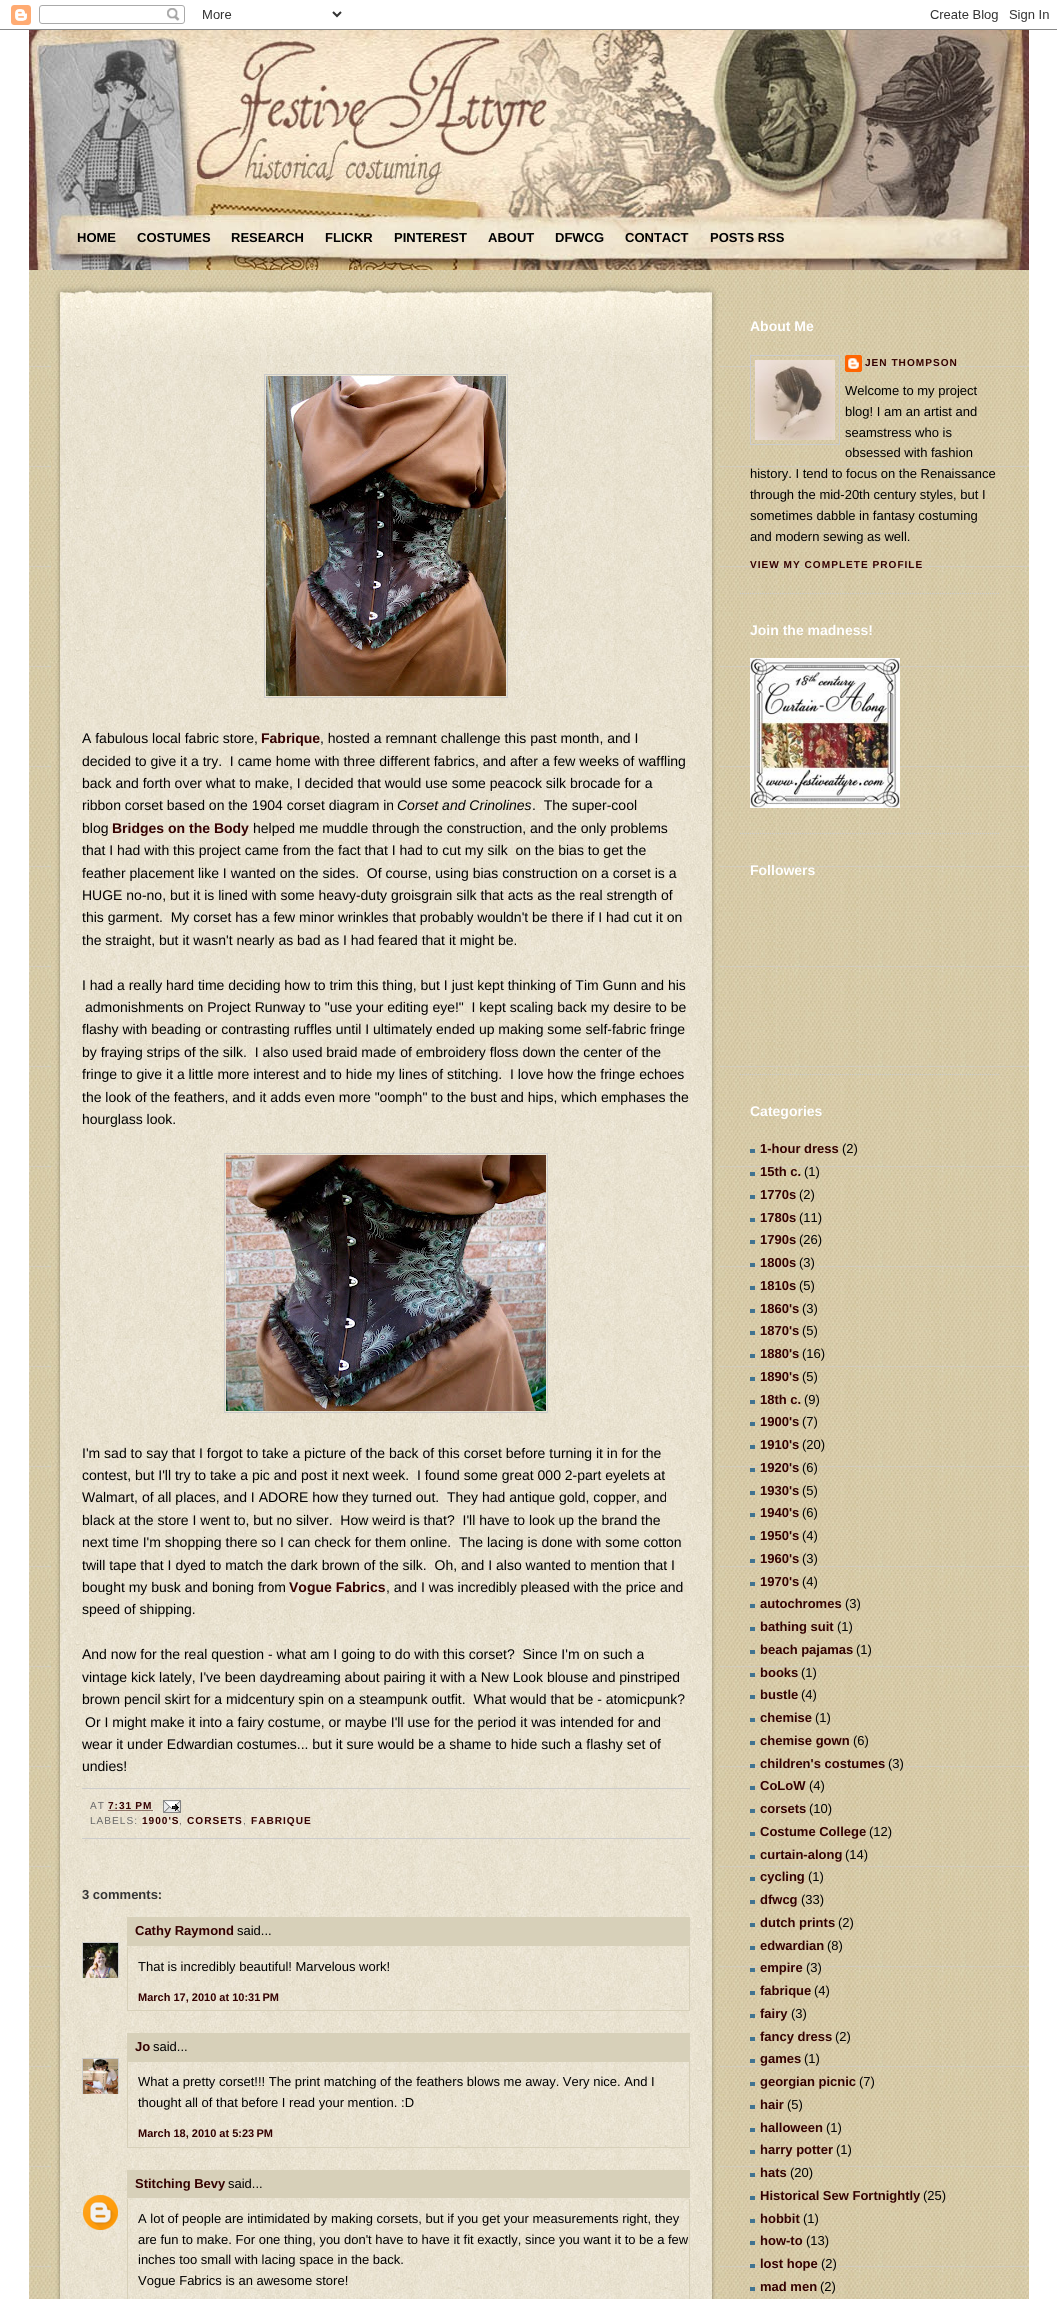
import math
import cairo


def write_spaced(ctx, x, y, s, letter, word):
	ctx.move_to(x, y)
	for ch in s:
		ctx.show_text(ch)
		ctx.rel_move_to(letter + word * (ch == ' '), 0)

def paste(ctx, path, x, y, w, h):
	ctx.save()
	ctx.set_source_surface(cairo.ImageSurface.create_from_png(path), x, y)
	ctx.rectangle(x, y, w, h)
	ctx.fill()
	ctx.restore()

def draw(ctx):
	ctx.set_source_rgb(1, 1, 1)
	ctx.paint()
	paste(ctx, 'media/1.png', 0, 5, 1057, 25)
	paste(ctx, 'media/2.png', 29, 30, 1000, 240)
	ctx.select_font_face('Liberation Sans', cairo.FONT_SLANT_NORMAL, cairo.FONT_WEIGHT_BOLD)
	ctx.set_font_size(13)
	ctx.set_source_rgb(0, 0, 0)
	for x, y, s in [
		(77, 242, 'HOME'),
		(137, 242, 'COSTUMES'),
		(231, 242, 'RESEARCH'),
		(325, 242, 'FLICKR'),
		(394, 242, 'PINTEREST'),
		(488, 242, 'ABOUT'),
		(555, 242, 'DFWCG'),
		(625, 242, 'CONTACT'),
		(710, 242, 'POSTS RSS'),
	]:
		ctx.move_to(x, y)
		ctx.show_text(s)
	paste(ctx, 'media/3.png', 29, 270, 1000, 2029)
	paste(ctx, 'media/4.png', 51, 355, 669, 1944)
	paste(ctx, 'media/5.png', 51, 283, 669, 72)
	ctx.rectangle(264.5, 374.5, 243, 323)
	ctx.set_source_rgb(0.8, 0.8, 0.8)
	ctx.set_line_width(1)
	ctx.stroke()
	paste(ctx, 'media/6.png', 266, 376, 240, 320)
	ctx.select_font_face('Liberation Sans')
	ctx.set_font_size(14)
	ctx.set_source_rgb(0, 0, 0)
	ctx.move_to(82, 743)
	ctx.show_text('A fabulous local fabric store,')
	ctx.select_font_face('Liberation Sans', cairo.FONT_SLANT_NORMAL, cairo.FONT_WEIGHT_BOLD)
	ctx.set_source_rgb(0.2, 0, 0)
	ctx.move_to(261, 743)
	ctx.show_text('Fabrique')
	ctx.select_font_face('Liberation Sans')
	ctx.set_source_rgb(0, 0, 0)
	for x, y, s in [
		(320, 743, ', hosted a remnant challenge this past month, and I'),
		(82, 766, 'decided to give it a try.  I came home with three different fabrics, and after a few weeks of waffling'),
		(82, 788, 'back and forth over what to make, I decided that would use some peacock silk brocade for a'),
		(82, 810, 'ribbon corset based on the 1904 corset diagram in'),
	]:
		ctx.move_to(x, y)
		ctx.show_text(s)
	ctx.select_font_face('Liberation Sans', cairo.FONT_SLANT_ITALIC)
	ctx.move_to(397, 810)
	ctx.show_text('Corset and Crinolines')
	ctx.select_font_face('Liberation Sans')
	ctx.move_to(532, 810)
	ctx.show_text('.  The super-cool')
	ctx.move_to(82, 833)
	ctx.show_text('blog')
	ctx.select_font_face('Liberation Sans', cairo.FONT_SLANT_NORMAL, cairo.FONT_WEIGHT_BOLD)
	ctx.set_source_rgb(0.2, 0, 0)
	ctx.move_to(112, 833)
	ctx.show_text('Bridges on the Body')
	ctx.select_font_face('Liberation Sans')
	ctx.set_source_rgb(0, 0, 0)
	for x, y, s in [
		(253, 833, 'helped me muddle through the construction, and the only problems'),
		(82, 855, 'that I had with this project came from the fact that I had to cut my silk  on the bias to get the'),
		(82, 878, 'feather placement like I wanted on the sides.  Of course, using bias construction on a corset is a'),
		(82, 900, 'HUGE no-no, but it is lined with some heavy-duty groisgrain silk that acts as the real strength of'),
		(82, 922, 'this garment.  My corset has a few minor wrinkles that probably wouldn\'t be there if I had cut it on'),
		(82, 945, 'the straight, but it wasn\'t nearly as bad as I had feared that it might be.'),
		(82, 990, 'I had a really hard time deciding how to trim this thing, but I just kept thinking of Tim Gunn and his'),
		(85, 1012, 'admonishments on Project Runway to "use your editing eye!"  I kept scaling back my desire to be'),
		(82, 1034, 'flashy with beading or contrasting ruffles until I ultimately ended up making some self-fabric fringe'),
		(82, 1057, 'by fraying strips of the silk.  I also used braid made of embroidery floss down the center of the'),
		(82, 1079, 'fringe to give it a little more interest and to hide my lines of stitching.  I love how the fringe echoes'),
		(82, 1102, 'the look of the feathers, and it adds even more "oomph" to the bust and hips, which emphases the'),
		(82, 1124, 'hourglass look.'),
	]:
		ctx.move_to(x, y)
		ctx.show_text(s)
	ctx.rectangle(224.5, 1153.5, 323, 259)
	ctx.set_source_rgb(0.8, 0.8, 0.8)
	ctx.stroke()
	paste(ctx, 'media/7.png', 226, 1155, 320, 256)
	ctx.set_source_rgb(0, 0, 0)
	for x, y, s in [
		(82, 1458, 'I\'m sad to say that I forgot to take a picture of the back of this corset before turning it in for the'),
		(82, 1480, 'contest, but I\'ll try to take a pic and post it next week.  I found some great 000 2-part eyelets at'),
		(82, 1502, 'Walmart, of all places, and I ADORE how they turned out.  They had antique gold, copper, and'),
		(82, 1525, 'black at the store I went to, but no silver.  How weird is that?  I\'ll have to look up the brand the'),
		(82, 1547, 'next time I\'m shopping there so I can check for them online.  The lacing is done with some cotton'),
		(82, 1570, 'twill tape that I dyed to match the dark brown of the silk.  Oh, and I also wanted to mention that I'),
		(82, 1592, 'bought my busk and boning from'),
	]:
		ctx.move_to(x, y)
		ctx.show_text(s)
	ctx.select_font_face('Liberation Sans', cairo.FONT_SLANT_NORMAL, cairo.FONT_WEIGHT_BOLD)
	ctx.set_source_rgb(0.2, 0, 0)
	ctx.move_to(289, 1592)
	ctx.show_text('Vogue Fabrics')
	ctx.select_font_face('Liberation Sans')
	ctx.set_source_rgb(0, 0, 0)
	for x, y, s in [
		(386, 1592, ', and I was incredibly pleased with the price and'),
		(82, 1614, 'speed of shipping.'),
		(82, 1659, 'And now for the real question - what am I going to do with this corset?  Since I\'m on such a'),
		(82, 1682, 'vintage kick lately, I\'ve been daydreaming about pairing it with a New Look blouse and pinstriped'),
		(82, 1704, 'brown pencil skirt for a midcentury spin on a steampunk outfit.  What would that be - atomicpunk?'),
		(85, 1727, 'Or I might make it into a fairy costume, or maybe I\'ll use for the period it was intended for and'),
		(82, 1749, 'wear it under Edwardian costumes... but it sure would be a shame to hide such a flashy set of'),
		(82, 1771, 'undies!'),
	]:
		ctx.move_to(x, y)
		ctx.show_text(s)
	ctx.set_source_rgb(0.8, 0.8, 0.8)
	ctx.rectangle(82, 1788, 608, 1)
	ctx.fill()
	ctx.rectangle(82, 1838, 608, 1)
	ctx.fill()
	ctx.set_font_size(10.1)
	ctx.set_source_rgb(0.4, 0.4, 0.4)
	write_spaced(ctx, 90, 1809, 'AT', 1, 0)
	ctx.select_font_face('Liberation Sans', cairo.FONT_SLANT_NORMAL, cairo.FONT_WEIGHT_BOLD)
	ctx.set_source_rgb(0.2, 0, 0)
	write_spaced(ctx, 108, 1809, '7:31 PM', 1, 0)
	ctx.new_path()
	ctx.move_to(108.5, 1810.5)
	ctx.line_to(153, 1810.5)
	ctx.set_dash([1, 1])
	ctx.stroke()
	paste(ctx, 'media/8.png', 163, 1800, 18, 13)
	ctx.select_font_face('Liberation Sans')
	ctx.set_source_rgb(0.4, 0.4, 0.4)
	write_spaced(ctx, 90, 1824, 'LABELS:', 1, 0)
	ctx.select_font_face('Liberation Sans', cairo.FONT_SLANT_NORMAL, cairo.FONT_WEIGHT_BOLD)
	ctx.set_source_rgb(0.2, 0, 0)
	write_spaced(ctx, 142, 1824, '1900\'S', 1, 0)
	ctx.select_font_face('Liberation Sans')
	ctx.set_source_rgb(0.4, 0.4, 0.4)
	write_spaced(ctx, 179, 1824, ',', 1, 0)
	ctx.select_font_face('Liberation Sans', cairo.FONT_SLANT_NORMAL, cairo.FONT_WEIGHT_BOLD)
	ctx.set_source_rgb(0.2, 0, 0)
	write_spaced(ctx, 187, 1824, 'CORSETS', 1, 0)
	ctx.select_font_face('Liberation Sans')
	ctx.set_source_rgb(0.4, 0.4, 0.4)
	write_spaced(ctx, 243, 1824, ',', 1, 0)
	ctx.select_font_face('Liberation Sans', cairo.FONT_SLANT_NORMAL, cairo.FONT_WEIGHT_BOLD)
	ctx.set_source_rgb(0.2, 0, 0)
	write_spaced(ctx, 251, 1824, 'FABRIQUE', 1, 0)
	ctx.set_font_size(13)
	ctx.set_source_rgb(0.2, 0.2, 0.2)
	ctx.move_to(82, 1899)
	ctx.show_text('3 comments:')
	ctx.set_source_rgb(0.843, 0.816, 0.725)
	ctx.rectangle(127, 1917, 563, 29)
	ctx.fill()
	ctx.set_source_rgb(0.2, 0, 0)
	ctx.move_to(135, 1935)
	ctx.show_text('Cathy Raymond')
	ctx.select_font_face('Liberation Sans')
	ctx.set_source_rgb(0, 0, 0)
	ctx.move_to(237, 1935)
	ctx.show_text('said...')
	ctx.save()
	ctx.rectangle(82, 1942, 37, 36)
	ctx.clip()
	ctx.rectangle(82.5, 1942.5, 36, 36)
	ctx.set_source_rgb(0.8, 0.8, 0.8)
	ctx.set_dash([])
	ctx.stroke()
	ctx.restore()
	paste(ctx, 'media/9.png', 83, 1943, 35, 35)
	ctx.set_source_rgb(0.843, 0.816, 0.725)
	ctx.rectangle(689, 1947, 1, 64)
	ctx.fill()
	ctx.rectangle(127, 1947, 1, 45)
	ctx.fill()
	ctx.set_source_rgb(0, 0, 0)
	ctx.move_to(138, 1971)
	ctx.show_text('That is incredibly beautiful! Marvelous work!')
	ctx.set_source_rgb(0.843, 0.816, 0.725)
	ctx.rectangle(127, 2010, 563, 1)
	ctx.fill()
	ctx.rectangle(127, 1990, 1, 21)
	ctx.fill()
	ctx.select_font_face('Liberation Sans', cairo.FONT_SLANT_NORMAL, cairo.FONT_WEIGHT_BOLD)
	ctx.set_font_size(11)
	ctx.set_source_rgb(0.2, 0, 0)
	ctx.move_to(138, 2001)
	ctx.show_text('March 17, 2010 at 10:31 PM')
	ctx.set_source_rgb(0.843, 0.816, 0.725)
	ctx.rectangle(127, 2033, 563, 29)
	ctx.fill()
	ctx.set_font_size(13)
	ctx.set_source_rgb(0.2, 0, 0)
	ctx.move_to(135, 2051)
	ctx.show_text('Jo')
	ctx.select_font_face('Liberation Sans')
	ctx.set_source_rgb(0, 0, 0)
	ctx.move_to(153, 2051)
	ctx.show_text('said...')
	ctx.save()
	ctx.rectangle(82, 2058, 37, 36)
	ctx.clip()
	ctx.rectangle(82.5, 2058.5, 36, 36)
	ctx.set_source_rgb(0.8, 0.8, 0.8)
	ctx.set_dash([])
	ctx.stroke()
	ctx.restore()
	paste(ctx, 'media/10.png', 83, 2059, 35, 35)
	ctx.set_source_rgb(0.843, 0.816, 0.725)
	ctx.rectangle(689, 2062, 1, 86)
	ctx.fill()
	ctx.rectangle(127, 2062, 1, 67)
	ctx.fill()
	ctx.set_source_rgb(0, 0, 0)
	ctx.move_to(138, 2086)
	ctx.show_text('What a pretty corset!!! The print matching of the feathers blows me away. Very nice. And I')
	ctx.move_to(138, 2107)
	ctx.show_text('thought all of that before I read your mention. :D')
	ctx.set_source_rgb(0.843, 0.816, 0.725)
	ctx.rectangle(127, 2147, 563, 1)
	ctx.fill()
	ctx.rectangle(127, 2126, 1, 22)
	ctx.fill()
	ctx.select_font_face('Liberation Sans', cairo.FONT_SLANT_NORMAL, cairo.FONT_WEIGHT_BOLD)
	ctx.set_font_size(11)
	ctx.set_source_rgb(0.2, 0, 0)
	ctx.move_to(138, 2137)
	ctx.show_text('March 18, 2010 at 5:23 PM')
	ctx.set_source_rgb(0.843, 0.816, 0.725)
	ctx.rectangle(127, 2170, 563, 28)
	ctx.fill()
	ctx.set_font_size(13)
	ctx.set_source_rgb(0.2, 0, 0)
	ctx.move_to(135, 2188)
	ctx.show_text('Stitching Bevy')
	ctx.select_font_face('Liberation Sans')
	ctx.set_source_rgb(0, 0, 0)
	ctx.move_to(228, 2188)
	ctx.show_text('said...')
	paste(ctx, 'media/11.png', 83, 2195, 35, 35)
	ctx.set_source_rgb(0.843, 0.816, 0.725)
	ctx.rectangle(689, 2199, 1, 100)
	ctx.fill()
	ctx.rectangle(127, 2199, 1, 100)
	ctx.fill()
	ctx.set_source_rgb(0, 0, 0)
	for x, y, s in [
		(138, 2223, 'A lot of people are intimidated by making corsets, but if you get your measurements right, they'),
		(138, 2244, 'are fun to make. For one thing, you don\'t have to have it fit exactly, since you want it to be a few'),
		(138, 2264, 'inches too small with lacing space in the back.'),
		(138, 2285, 'Vogue Fabrics is an awesome store!'),
	]:
		ctx.move_to(x, y)
		ctx.show_text(s)
	ctx.new_path()
	ctx.move_to(740, 593.5)
	ctx.line_to(1000, 593.5)
	ctx.set_source_rgb(0.8, 0.8, 0.8)
	ctx.stroke()
	ctx.select_font_face('Liberation Sans', cairo.FONT_SLANT_NORMAL, cairo.FONT_WEIGHT_BOLD)
	ctx.set_font_size(14)
	ctx.set_source_rgb(1, 1, 1)
	ctx.move_to(750, 331)
	ctx.show_text('About Me')
	ctx.rectangle(750.5, 355.5, 89, 89)
	ctx.set_source_rgb(0.8, 0.8, 0.8)
	ctx.set_dash([])
	ctx.stroke()
	paste(ctx, 'media/12.png', 755, 360, 80, 80)
	paste(ctx, 'media/13.png', 845, 355, 17, 17)
	ctx.set_font_size(10.1)
	ctx.set_source_rgb(0.2, 0, 0)
	write_spaced(ctx, 865, 366, 'JEN THOMPSON', 1, 0)
	ctx.select_font_face('Liberation Sans')
	ctx.set_font_size(13)
	ctx.set_source_rgb(0, 0, 0)
	for x, y, s in [
		(845, 395, 'Welcome to my project'),
		(845, 416, 'blog! I am an artist and'),
		(845, 437, 'seamstress who is'),
		(845, 457, 'obsessed with fashion'),
		(750, 478, 'history. I tend to focus on the Renaissance'),
		(750, 499, 'through the mid-20th century styles, but I'),
		(750, 520, 'sometimes dabble in fantasy costuming'),
		(750, 541, 'and modern sewing as well.'),
	]:
		ctx.move_to(x, y)
		ctx.show_text(s)
	ctx.select_font_face('Liberation Sans', cairo.FONT_SLANT_NORMAL, cairo.FONT_WEIGHT_BOLD)
	ctx.set_font_size(10.1)
	ctx.set_source_rgb(0.2, 0, 0)
	write_spaced(ctx, 750, 568, 'VIEW MY COMPLETE PROFILE', 1, 0)
	ctx.new_path()
	ctx.move_to(740, 833.5)
	ctx.line_to(1000, 833.5)
	ctx.set_source_rgb(0.8, 0.8, 0.8)
	ctx.set_dash([1, 1])
	ctx.stroke()
	ctx.set_font_size(14)
	ctx.set_source_rgb(1, 1, 1)
	ctx.move_to(750, 635)
	ctx.show_text('Join the madness!')
	paste(ctx, 'media/14.png', 750, 658, 150, 150)
	ctx.new_path()
	ctx.move_to(740, 1074.5)
	ctx.line_to(1000, 1074.5)
	ctx.set_source_rgb(0.8, 0.8, 0.8)
	ctx.stroke()
	ctx.set_source_rgb(1, 1, 1)
	ctx.move_to(750, 875)
	ctx.show_text('Followers')
	ctx.move_to(750, 1116)
	ctx.show_text('Categories')
	ctx.set_source_rgb(0.251, 0.451, 0.565)
	ctx.rectangle(750, 1149, 5, 4)
	ctx.fill()
	ctx.set_font_size(13)
	ctx.set_source_rgb(0.2, 0, 0)
	ctx.move_to(760, 1153)
	ctx.show_text('1-hour dress')
	ctx.select_font_face('Liberation Sans')
	ctx.set_source_rgb(0, 0, 0)
	ctx.move_to(842, 1153)
	ctx.show_text('(2)')
	ctx.set_source_rgb(0.251, 0.451, 0.565)
	ctx.rectangle(750, 1172, 5, 4)
	ctx.fill()
	ctx.select_font_face('Liberation Sans', cairo.FONT_SLANT_NORMAL, cairo.FONT_WEIGHT_BOLD)
	ctx.set_source_rgb(0.2, 0, 0)
	ctx.move_to(760, 1176)
	ctx.show_text('15th c.')
	ctx.select_font_face('Liberation Sans')
	ctx.set_source_rgb(0, 0, 0)
	ctx.move_to(804, 1176)
	ctx.show_text('(1)')
	ctx.set_source_rgb(0.251, 0.451, 0.565)
	ctx.rectangle(750, 1195, 5, 4)
	ctx.fill()
	ctx.select_font_face('Liberation Sans', cairo.FONT_SLANT_NORMAL, cairo.FONT_WEIGHT_BOLD)
	ctx.set_source_rgb(0.2, 0, 0)
	ctx.move_to(760, 1199)
	ctx.show_text('1770s')
	ctx.select_font_face('Liberation Sans')
	ctx.set_source_rgb(0, 0, 0)
	ctx.move_to(799, 1199)
	ctx.show_text('(2)')
	ctx.set_source_rgb(0.251, 0.451, 0.565)
	ctx.rectangle(750, 1218, 5, 4)
	ctx.fill()
	ctx.select_font_face('Liberation Sans', cairo.FONT_SLANT_NORMAL, cairo.FONT_WEIGHT_BOLD)
	ctx.set_source_rgb(0.2, 0, 0)
	ctx.move_to(760, 1222)
	ctx.show_text('1780s')
	ctx.select_font_face('Liberation Sans')
	ctx.set_source_rgb(0, 0, 0)
	ctx.move_to(799, 1222)
	ctx.show_text('(11)')
	ctx.set_source_rgb(0.251, 0.451, 0.565)
	ctx.rectangle(750, 1240, 5, 4)
	ctx.fill()
	ctx.select_font_face('Liberation Sans', cairo.FONT_SLANT_NORMAL, cairo.FONT_WEIGHT_BOLD)
	ctx.set_source_rgb(0.2, 0, 0)
	ctx.move_to(760, 1244)
	ctx.show_text('1790s')
	ctx.select_font_face('Liberation Sans')
	ctx.set_source_rgb(0, 0, 0)
	ctx.move_to(799, 1244)
	ctx.show_text('(26)')
	ctx.set_source_rgb(0.251, 0.451, 0.565)
	ctx.rectangle(750, 1263, 5, 4)
	ctx.fill()
	ctx.select_font_face('Liberation Sans', cairo.FONT_SLANT_NORMAL, cairo.FONT_WEIGHT_BOLD)
	ctx.set_source_rgb(0.2, 0, 0)
	ctx.move_to(760, 1267)
	ctx.show_text('1800s')
	ctx.select_font_face('Liberation Sans')
	ctx.set_source_rgb(0, 0, 0)
	ctx.move_to(799, 1267)
	ctx.show_text('(3)')
	ctx.set_source_rgb(0.251, 0.451, 0.565)
	ctx.rectangle(750, 1286, 5, 4)
	ctx.fill()
	ctx.select_font_face('Liberation Sans', cairo.FONT_SLANT_NORMAL, cairo.FONT_WEIGHT_BOLD)
	ctx.set_source_rgb(0.2, 0, 0)
	ctx.move_to(760, 1290)
	ctx.show_text('1810s')
	ctx.select_font_face('Liberation Sans')
	ctx.set_source_rgb(0, 0, 0)
	ctx.move_to(799, 1290)
	ctx.show_text('(5)')
	ctx.set_source_rgb(0.251, 0.451, 0.565)
	ctx.rectangle(750, 1309, 5, 4)
	ctx.fill()
	ctx.select_font_face('Liberation Sans', cairo.FONT_SLANT_NORMAL, cairo.FONT_WEIGHT_BOLD)
	ctx.set_source_rgb(0.2, 0, 0)
	ctx.move_to(760, 1313)
	ctx.show_text('1860\'s')
	ctx.select_font_face('Liberation Sans')
	ctx.set_source_rgb(0, 0, 0)
	ctx.move_to(802, 1313)
	ctx.show_text('(3)')
	ctx.set_source_rgb(0.251, 0.451, 0.565)
	ctx.rectangle(750, 1331, 5, 4)
	ctx.fill()
	ctx.select_font_face('Liberation Sans', cairo.FONT_SLANT_NORMAL, cairo.FONT_WEIGHT_BOLD)
	ctx.set_source_rgb(0.2, 0, 0)
	ctx.move_to(760, 1335)
	ctx.show_text('1870\'s')
	ctx.select_font_face('Liberation Sans')
	ctx.set_source_rgb(0, 0, 0)
	ctx.move_to(802, 1335)
	ctx.show_text('(5)')
	ctx.set_source_rgb(0.251, 0.451, 0.565)
	ctx.rectangle(750, 1354, 5, 4)
	ctx.fill()
	ctx.select_font_face('Liberation Sans', cairo.FONT_SLANT_NORMAL, cairo.FONT_WEIGHT_BOLD)
	ctx.set_source_rgb(0.2, 0, 0)
	ctx.move_to(760, 1358)
	ctx.show_text('1880\'s')
	ctx.select_font_face('Liberation Sans')
	ctx.set_source_rgb(0, 0, 0)
	ctx.move_to(802, 1358)
	ctx.show_text('(16)')
	ctx.set_source_rgb(0.251, 0.451, 0.565)
	ctx.rectangle(750, 1377, 5, 4)
	ctx.fill()
	ctx.select_font_face('Liberation Sans', cairo.FONT_SLANT_NORMAL, cairo.FONT_WEIGHT_BOLD)
	ctx.set_source_rgb(0.2, 0, 0)
	ctx.move_to(760, 1381)
	ctx.show_text('1890\'s')
	ctx.select_font_face('Liberation Sans')
	ctx.set_source_rgb(0, 0, 0)
	ctx.move_to(802, 1381)
	ctx.show_text('(5)')
	ctx.set_source_rgb(0.251, 0.451, 0.565)
	ctx.rectangle(750, 1400, 5, 4)
	ctx.fill()
	ctx.select_font_face('Liberation Sans', cairo.FONT_SLANT_NORMAL, cairo.FONT_WEIGHT_BOLD)
	ctx.set_source_rgb(0.2, 0, 0)
	ctx.move_to(760, 1404)
	ctx.show_text('18th c.')
	ctx.select_font_face('Liberation Sans')
	ctx.set_source_rgb(0, 0, 0)
	ctx.move_to(804, 1404)
	ctx.show_text('(9)')
	ctx.set_source_rgb(0.251, 0.451, 0.565)
	ctx.rectangle(750, 1422, 5, 4)
	ctx.fill()
	ctx.select_font_face('Liberation Sans', cairo.FONT_SLANT_NORMAL, cairo.FONT_WEIGHT_BOLD)
	ctx.set_source_rgb(0.2, 0, 0)
	ctx.move_to(760, 1426)
	ctx.show_text('1900\'s')
	ctx.select_font_face('Liberation Sans')
	ctx.set_source_rgb(0, 0, 0)
	ctx.move_to(802, 1426)
	ctx.show_text('(7)')
	ctx.set_source_rgb(0.251, 0.451, 0.565)
	ctx.rectangle(750, 1445, 5, 4)
	ctx.fill()
	ctx.select_font_face('Liberation Sans', cairo.FONT_SLANT_NORMAL, cairo.FONT_WEIGHT_BOLD)
	ctx.set_source_rgb(0.2, 0, 0)
	ctx.move_to(760, 1449)
	ctx.show_text('1910\'s')
	ctx.select_font_face('Liberation Sans')
	ctx.set_source_rgb(0, 0, 0)
	ctx.move_to(802, 1449)
	ctx.show_text('(20)')
	ctx.set_source_rgb(0.251, 0.451, 0.565)
	ctx.rectangle(750, 1468, 5, 4)
	ctx.fill()
	ctx.select_font_face('Liberation Sans', cairo.FONT_SLANT_NORMAL, cairo.FONT_WEIGHT_BOLD)
	ctx.set_source_rgb(0.2, 0, 0)
	ctx.move_to(760, 1472)
	ctx.show_text('1920\'s')
	ctx.select_font_face('Liberation Sans')
	ctx.set_source_rgb(0, 0, 0)
	ctx.move_to(802, 1472)
	ctx.show_text('(6)')
	ctx.set_source_rgb(0.251, 0.451, 0.565)
	ctx.rectangle(750, 1491, 5, 4)
	ctx.fill()
	ctx.select_font_face('Liberation Sans', cairo.FONT_SLANT_NORMAL, cairo.FONT_WEIGHT_BOLD)
	ctx.set_source_rgb(0.2, 0, 0)
	ctx.move_to(760, 1495)
	ctx.show_text('1930\'s')
	ctx.select_font_face('Liberation Sans')
	ctx.set_source_rgb(0, 0, 0)
	ctx.move_to(802, 1495)
	ctx.show_text('(5)')
	ctx.set_source_rgb(0.251, 0.451, 0.565)
	ctx.rectangle(750, 1513, 5, 4)
	ctx.fill()
	ctx.select_font_face('Liberation Sans', cairo.FONT_SLANT_NORMAL, cairo.FONT_WEIGHT_BOLD)
	ctx.set_source_rgb(0.2, 0, 0)
	ctx.move_to(760, 1517)
	ctx.show_text('1940\'s')
	ctx.select_font_face('Liberation Sans')
	ctx.set_source_rgb(0, 0, 0)
	ctx.move_to(802, 1517)
	ctx.show_text('(6)')
	ctx.set_source_rgb(0.251, 0.451, 0.565)
	ctx.rectangle(750, 1536, 5, 4)
	ctx.fill()
	ctx.select_font_face('Liberation Sans', cairo.FONT_SLANT_NORMAL, cairo.FONT_WEIGHT_BOLD)
	ctx.set_source_rgb(0.2, 0, 0)
	ctx.move_to(760, 1540)
	ctx.show_text('1950\'s')
	ctx.select_font_face('Liberation Sans')
	ctx.set_source_rgb(0, 0, 0)
	ctx.move_to(802, 1540)
	ctx.show_text('(4)')
	ctx.set_source_rgb(0.251, 0.451, 0.565)
	ctx.rectangle(750, 1559, 5, 4)
	ctx.fill()
	ctx.select_font_face('Liberation Sans', cairo.FONT_SLANT_NORMAL, cairo.FONT_WEIGHT_BOLD)
	ctx.set_source_rgb(0.2, 0, 0)
	ctx.move_to(760, 1563)
	ctx.show_text('1960\'s')
	ctx.select_font_face('Liberation Sans')
	ctx.set_source_rgb(0, 0, 0)
	ctx.move_to(802, 1563)
	ctx.show_text('(3)')
	ctx.set_source_rgb(0.251, 0.451, 0.565)
	ctx.rectangle(750, 1582, 5, 4)
	ctx.fill()
	ctx.select_font_face('Liberation Sans', cairo.FONT_SLANT_NORMAL, cairo.FONT_WEIGHT_BOLD)
	ctx.set_source_rgb(0.2, 0, 0)
	ctx.move_to(760, 1586)
	ctx.show_text('1970\'s')
	ctx.select_font_face('Liberation Sans')
	ctx.set_source_rgb(0, 0, 0)
	ctx.move_to(802, 1586)
	ctx.show_text('(4)')
	ctx.set_source_rgb(0.251, 0.451, 0.565)
	ctx.rectangle(750, 1604, 5, 4)
	ctx.fill()
	ctx.select_font_face('Liberation Sans', cairo.FONT_SLANT_NORMAL, cairo.FONT_WEIGHT_BOLD)
	ctx.set_source_rgb(0.2, 0, 0)
	ctx.move_to(760, 1608)
	ctx.show_text('autochromes')
	ctx.select_font_face('Liberation Sans')
	ctx.set_source_rgb(0, 0, 0)
	ctx.move_to(845, 1608)
	ctx.show_text('(3)')
	ctx.set_source_rgb(0.251, 0.451, 0.565)
	ctx.rectangle(750, 1627, 5, 4)
	ctx.fill()
	ctx.select_font_face('Liberation Sans', cairo.FONT_SLANT_NORMAL, cairo.FONT_WEIGHT_BOLD)
	ctx.set_source_rgb(0.2, 0, 0)
	ctx.move_to(760, 1631)
	ctx.show_text('bathing suit')
	ctx.select_font_face('Liberation Sans')
	ctx.set_source_rgb(0, 0, 0)
	ctx.move_to(837, 1631)
	ctx.show_text('(1)')
	ctx.set_source_rgb(0.251, 0.451, 0.565)
	ctx.rectangle(750, 1650, 5, 4)
	ctx.fill()
	ctx.select_font_face('Liberation Sans', cairo.FONT_SLANT_NORMAL, cairo.FONT_WEIGHT_BOLD)
	ctx.set_source_rgb(0.2, 0, 0)
	ctx.move_to(760, 1654)
	ctx.show_text('beach pajamas')
	ctx.select_font_face('Liberation Sans')
	ctx.set_source_rgb(0, 0, 0)
	ctx.move_to(856, 1654)
	ctx.show_text('(1)')
	ctx.set_source_rgb(0.251, 0.451, 0.565)
	ctx.rectangle(750, 1673, 5, 4)
	ctx.fill()
	ctx.select_font_face('Liberation Sans', cairo.FONT_SLANT_NORMAL, cairo.FONT_WEIGHT_BOLD)
	ctx.set_source_rgb(0.2, 0, 0)
	ctx.move_to(760, 1677)
	ctx.show_text('books')
	ctx.select_font_face('Liberation Sans')
	ctx.set_source_rgb(0, 0, 0)
	ctx.move_to(801, 1677)
	ctx.show_text('(1)')
	ctx.set_source_rgb(0.251, 0.451, 0.565)
	ctx.rectangle(750, 1695, 5, 4)
	ctx.fill()
	ctx.select_font_face('Liberation Sans', cairo.FONT_SLANT_NORMAL, cairo.FONT_WEIGHT_BOLD)
	ctx.set_source_rgb(0.2, 0, 0)
	ctx.move_to(760, 1699)
	ctx.show_text('bustle')
	ctx.select_font_face('Liberation Sans')
	ctx.set_source_rgb(0, 0, 0)
	ctx.move_to(801, 1699)
	ctx.show_text('(4)')
	ctx.set_source_rgb(0.251, 0.451, 0.565)
	ctx.rectangle(750, 1718, 5, 4)
	ctx.fill()
	ctx.select_font_face('Liberation Sans', cairo.FONT_SLANT_NORMAL, cairo.FONT_WEIGHT_BOLD)
	ctx.set_source_rgb(0.2, 0, 0)
	ctx.move_to(760, 1722)
	ctx.show_text('chemise')
	ctx.select_font_face('Liberation Sans')
	ctx.set_source_rgb(0, 0, 0)
	ctx.move_to(815, 1722)
	ctx.show_text('(1)')
	ctx.set_source_rgb(0.251, 0.451, 0.565)
	ctx.rectangle(750, 1741, 5, 4)
	ctx.fill()
	ctx.select_font_face('Liberation Sans', cairo.FONT_SLANT_NORMAL, cairo.FONT_WEIGHT_BOLD)
	ctx.set_source_rgb(0.2, 0, 0)
	ctx.move_to(760, 1745)
	ctx.show_text('chemise gown')
	ctx.select_font_face('Liberation Sans')
	ctx.set_source_rgb(0, 0, 0)
	ctx.move_to(853, 1745)
	ctx.show_text('(6)')
	ctx.set_source_rgb(0.251, 0.451, 0.565)
	ctx.rectangle(750, 1764, 5, 4)
	ctx.fill()
	ctx.select_font_face('Liberation Sans', cairo.FONT_SLANT_NORMAL, cairo.FONT_WEIGHT_BOLD)
	ctx.set_source_rgb(0.2, 0, 0)
	ctx.move_to(760, 1768)
	ctx.show_text('children\'s costumes')
	ctx.select_font_face('Liberation Sans')
	ctx.set_source_rgb(0, 0, 0)
	ctx.move_to(888, 1768)
	ctx.show_text('(3)')
	ctx.set_source_rgb(0.251, 0.451, 0.565)
	ctx.rectangle(750, 1786, 5, 4)
	ctx.fill()
	ctx.select_font_face('Liberation Sans', cairo.FONT_SLANT_NORMAL, cairo.FONT_WEIGHT_BOLD)
	ctx.set_source_rgb(0.2, 0, 0)
	ctx.move_to(760, 1790)
	ctx.show_text('CoLoW')
	ctx.select_font_face('Liberation Sans')
	ctx.set_source_rgb(0, 0, 0)
	ctx.move_to(809, 1790)
	ctx.show_text('(4)')
	ctx.set_source_rgb(0.251, 0.451, 0.565)
	ctx.rectangle(750, 1809, 5, 4)
	ctx.fill()
	ctx.select_font_face('Liberation Sans', cairo.FONT_SLANT_NORMAL, cairo.FONT_WEIGHT_BOLD)
	ctx.set_source_rgb(0.2, 0, 0)
	ctx.move_to(760, 1813)
	ctx.show_text('corsets')
	ctx.select_font_face('Liberation Sans')
	ctx.set_source_rgb(0, 0, 0)
	ctx.move_to(809, 1813)
	ctx.show_text('(10)')
	ctx.set_source_rgb(0.251, 0.451, 0.565)
	ctx.rectangle(750, 1832, 5, 4)
	ctx.fill()
	ctx.select_font_face('Liberation Sans', cairo.FONT_SLANT_NORMAL, cairo.FONT_WEIGHT_BOLD)
	ctx.set_source_rgb(0.2, 0, 0)
	ctx.move_to(760, 1836)
	ctx.show_text('Costume College')
	ctx.select_font_face('Liberation Sans')
	ctx.set_source_rgb(0, 0, 0)
	ctx.move_to(869, 1836)
	ctx.show_text('(12)')
	ctx.set_source_rgb(0.251, 0.451, 0.565)
	ctx.rectangle(750, 1855, 5, 4)
	ctx.fill()
	ctx.select_font_face('Liberation Sans', cairo.FONT_SLANT_NORMAL, cairo.FONT_WEIGHT_BOLD)
	ctx.set_source_rgb(0.2, 0, 0)
	ctx.move_to(760, 1859)
	ctx.show_text('curtain-along')
	ctx.select_font_face('Liberation Sans')
	ctx.set_source_rgb(0, 0, 0)
	ctx.move_to(845, 1859)
	ctx.show_text('(14)')
	ctx.set_source_rgb(0.251, 0.451, 0.565)
	ctx.rectangle(750, 1877, 5, 4)
	ctx.fill()
	ctx.select_font_face('Liberation Sans', cairo.FONT_SLANT_NORMAL, cairo.FONT_WEIGHT_BOLD)
	ctx.set_source_rgb(0.2, 0, 0)
	ctx.move_to(760, 1881)
	ctx.show_text('cycling')
	ctx.select_font_face('Liberation Sans')
	ctx.set_source_rgb(0, 0, 0)
	ctx.move_to(808, 1881)
	ctx.show_text('(1)')
	ctx.set_source_rgb(0.251, 0.451, 0.565)
	ctx.rectangle(750, 1900, 5, 4)
	ctx.fill()
	ctx.select_font_face('Liberation Sans', cairo.FONT_SLANT_NORMAL, cairo.FONT_WEIGHT_BOLD)
	ctx.set_source_rgb(0.2, 0, 0)
	ctx.move_to(760, 1904)
	ctx.show_text('dfwcg')
	ctx.select_font_face('Liberation Sans')
	ctx.set_source_rgb(0, 0, 0)
	ctx.move_to(801, 1904)
	ctx.show_text('(33)')
	ctx.set_source_rgb(0.251, 0.451, 0.565)
	ctx.rectangle(750, 1923, 5, 4)
	ctx.fill()
	ctx.select_font_face('Liberation Sans', cairo.FONT_SLANT_NORMAL, cairo.FONT_WEIGHT_BOLD)
	ctx.set_source_rgb(0.2, 0, 0)
	ctx.move_to(760, 1927)
	ctx.show_text('dutch prints')
	ctx.select_font_face('Liberation Sans')
	ctx.set_source_rgb(0, 0, 0)
	ctx.move_to(838, 1927)
	ctx.show_text('(2)')
	ctx.set_source_rgb(0.251, 0.451, 0.565)
	ctx.rectangle(750, 1946, 5, 4)
	ctx.fill()
	ctx.select_font_face('Liberation Sans', cairo.FONT_SLANT_NORMAL, cairo.FONT_WEIGHT_BOLD)
	ctx.set_source_rgb(0.2, 0, 0)
	ctx.move_to(760, 1950)
	ctx.show_text('edwardian')
	ctx.select_font_face('Liberation Sans')
	ctx.set_source_rgb(0, 0, 0)
	ctx.move_to(827, 1950)
	ctx.show_text('(8)')
	ctx.set_source_rgb(0.251, 0.451, 0.565)
	ctx.rectangle(750, 1968, 5, 4)
	ctx.fill()
	ctx.select_font_face('Liberation Sans', cairo.FONT_SLANT_NORMAL, cairo.FONT_WEIGHT_BOLD)
	ctx.set_source_rgb(0.2, 0, 0)
	ctx.move_to(760, 1972)
	ctx.show_text('empire')
	ctx.select_font_face('Liberation Sans')
	ctx.set_source_rgb(0, 0, 0)
	ctx.move_to(806, 1972)
	ctx.show_text('(3)')
	ctx.set_source_rgb(0.251, 0.451, 0.565)
	ctx.rectangle(750, 1991, 5, 4)
	ctx.fill()
	ctx.select_font_face('Liberation Sans', cairo.FONT_SLANT_NORMAL, cairo.FONT_WEIGHT_BOLD)
	ctx.set_source_rgb(0.2, 0, 0)
	ctx.move_to(760, 1995)
	ctx.show_text('fabrique')
	ctx.select_font_face('Liberation Sans')
	ctx.set_source_rgb(0, 0, 0)
	ctx.move_to(814, 1995)
	ctx.show_text('(4)')
	ctx.set_source_rgb(0.251, 0.451, 0.565)
	ctx.rectangle(750, 2014, 5, 4)
	ctx.fill()
	ctx.select_font_face('Liberation Sans', cairo.FONT_SLANT_NORMAL, cairo.FONT_WEIGHT_BOLD)
	ctx.set_source_rgb(0.2, 0, 0)
	ctx.move_to(760, 2018)
	ctx.show_text('fairy')
	ctx.select_font_face('Liberation Sans')
	ctx.set_source_rgb(0, 0, 0)
	ctx.move_to(791, 2018)
	ctx.show_text('(3)')
	ctx.set_source_rgb(0.251, 0.451, 0.565)
	ctx.rectangle(750, 2037, 5, 4)
	ctx.fill()
	ctx.select_font_face('Liberation Sans', cairo.FONT_SLANT_NORMAL, cairo.FONT_WEIGHT_BOLD)
	ctx.set_source_rgb(0.2, 0, 0)
	ctx.move_to(760, 2041)
	ctx.show_text('fancy dress')
	ctx.select_font_face('Liberation Sans')
	ctx.set_source_rgb(0, 0, 0)
	ctx.move_to(835, 2041)
	ctx.show_text('(2)')
	ctx.set_source_rgb(0.251, 0.451, 0.565)
	ctx.rectangle(750, 2059, 5, 4)
	ctx.fill()
	ctx.select_font_face('Liberation Sans', cairo.FONT_SLANT_NORMAL, cairo.FONT_WEIGHT_BOLD)
	ctx.set_source_rgb(0.2, 0, 0)
	ctx.move_to(760, 2063)
	ctx.show_text('games')
	ctx.select_font_face('Liberation Sans')
	ctx.set_source_rgb(0, 0, 0)
	ctx.move_to(804, 2063)
	ctx.show_text('(1)')
	ctx.set_source_rgb(0.251, 0.451, 0.565)
	ctx.rectangle(750, 2082, 5, 4)
	ctx.fill()
	ctx.select_font_face('Liberation Sans', cairo.FONT_SLANT_NORMAL, cairo.FONT_WEIGHT_BOLD)
	ctx.set_source_rgb(0.2, 0, 0)
	ctx.move_to(760, 2086)
	ctx.show_text('georgian picnic')
	ctx.select_font_face('Liberation Sans')
	ctx.set_source_rgb(0, 0, 0)
	ctx.move_to(859, 2086)
	ctx.show_text('(7)')
	ctx.set_source_rgb(0.251, 0.451, 0.565)
	ctx.rectangle(750, 2105, 5, 4)
	ctx.fill()
	ctx.select_font_face('Liberation Sans', cairo.FONT_SLANT_NORMAL, cairo.FONT_WEIGHT_BOLD)
	ctx.set_source_rgb(0.2, 0, 0)
	ctx.move_to(760, 2109)
	ctx.show_text('hair')
	ctx.select_font_face('Liberation Sans')
	ctx.set_source_rgb(0, 0, 0)
	ctx.move_to(787, 2109)
	ctx.show_text('(5)')
	ctx.set_source_rgb(0.251, 0.451, 0.565)
	ctx.rectangle(750, 2128, 5, 4)
	ctx.fill()
	ctx.select_font_face('Liberation Sans', cairo.FONT_SLANT_NORMAL, cairo.FONT_WEIGHT_BOLD)
	ctx.set_source_rgb(0.2, 0, 0)
	ctx.move_to(760, 2132)
	ctx.show_text('halloween')
	ctx.select_font_face('Liberation Sans')
	ctx.set_source_rgb(0, 0, 0)
	ctx.move_to(826, 2132)
	ctx.show_text('(1)')
	ctx.set_source_rgb(0.251, 0.451, 0.565)
	ctx.rectangle(750, 2150, 5, 4)
	ctx.fill()
	ctx.select_font_face('Liberation Sans', cairo.FONT_SLANT_NORMAL, cairo.FONT_WEIGHT_BOLD)
	ctx.set_source_rgb(0.2, 0, 0)
	ctx.move_to(760, 2154)
	ctx.show_text('harry potter')
	ctx.select_font_face('Liberation Sans')
	ctx.set_source_rgb(0, 0, 0)
	ctx.move_to(836, 2154)
	ctx.show_text('(1)')
	ctx.set_source_rgb(0.251, 0.451, 0.565)
	ctx.rectangle(750, 2173, 5, 4)
	ctx.fill()
	ctx.select_font_face('Liberation Sans', cairo.FONT_SLANT_NORMAL, cairo.FONT_WEIGHT_BOLD)
	ctx.set_source_rgb(0.2, 0, 0)
	ctx.move_to(760, 2177)
	ctx.show_text('hats')
	ctx.select_font_face('Liberation Sans')
	ctx.set_source_rgb(0, 0, 0)
	ctx.move_to(790, 2177)
	ctx.show_text('(20)')
	ctx.set_source_rgb(0.251, 0.451, 0.565)
	ctx.rectangle(750, 2196, 5, 4)
	ctx.fill()
	ctx.select_font_face('Liberation Sans', cairo.FONT_SLANT_NORMAL, cairo.FONT_WEIGHT_BOLD)
	ctx.set_source_rgb(0.2, 0, 0)
	ctx.move_to(760, 2200)
	ctx.show_text('Historical Sew Fortnightly')
	ctx.select_font_face('Liberation Sans')
	ctx.set_source_rgb(0, 0, 0)
	ctx.move_to(923, 2200)
	ctx.show_text('(25)')
	ctx.set_source_rgb(0.251, 0.451, 0.565)
	ctx.rectangle(750, 2219, 5, 4)
	ctx.fill()
	ctx.select_font_face('Liberation Sans', cairo.FONT_SLANT_NORMAL, cairo.FONT_WEIGHT_BOLD)
	ctx.set_source_rgb(0.2, 0, 0)
	ctx.move_to(760, 2223)
	ctx.show_text('hobbit')
	ctx.select_font_face('Liberation Sans')
	ctx.set_source_rgb(0, 0, 0)
	ctx.move_to(803, 2223)
	ctx.show_text('(1)')
	ctx.set_source_rgb(0.251, 0.451, 0.565)
	ctx.rectangle(750, 2241, 5, 4)
	ctx.fill()
	ctx.select_font_face('Liberation Sans', cairo.FONT_SLANT_NORMAL, cairo.FONT_WEIGHT_BOLD)
	ctx.set_source_rgb(0.2, 0, 0)
	ctx.move_to(760, 2245)
	ctx.show_text('how-to')
	ctx.select_font_face('Liberation Sans')
	ctx.set_source_rgb(0, 0, 0)
	ctx.move_to(806, 2245)
	ctx.show_text('(13)')
	ctx.set_source_rgb(0.251, 0.451, 0.565)
	ctx.rectangle(750, 2264, 5, 4)
	ctx.fill()
	ctx.select_font_face('Liberation Sans', cairo.FONT_SLANT_NORMAL, cairo.FONT_WEIGHT_BOLD)
	ctx.set_source_rgb(0.2, 0, 0)
	ctx.move_to(760, 2268)
	ctx.show_text('lost hope')
	ctx.select_font_face('Liberation Sans')
	ctx.set_source_rgb(0, 0, 0)
	ctx.move_to(821, 2268)
	ctx.show_text('(2)')
	ctx.set_source_rgb(0.251, 0.451, 0.565)
	ctx.rectangle(750, 2287, 5, 4)
	ctx.fill()
	ctx.select_font_face('Liberation Sans', cairo.FONT_SLANT_NORMAL, cairo.FONT_WEIGHT_BOLD)
	ctx.set_source_rgb(0.2, 0, 0)
	ctx.move_to(760, 2291)
	ctx.show_text('mad men')
	ctx.select_font_face('Liberation Sans')
	ctx.set_source_rgb(0, 0, 0)
	ctx.move_to(820, 2291)
	ctx.show_text('(2)')


surface = cairo.ImageSurface(cairo.FORMAT_RGB24, 1057, 2299)
ctx = cairo.Context(surface)
options = cairo.FontOptions()
options.set_hint_metrics(cairo.HINT_METRICS_OFF)
options.set_hint_style(cairo.HINT_STYLE_NONE)
ctx.set_font_options(options)
ctx.set_miter_limit(4)
draw(ctx)
surface.write_to_png('image.png')
